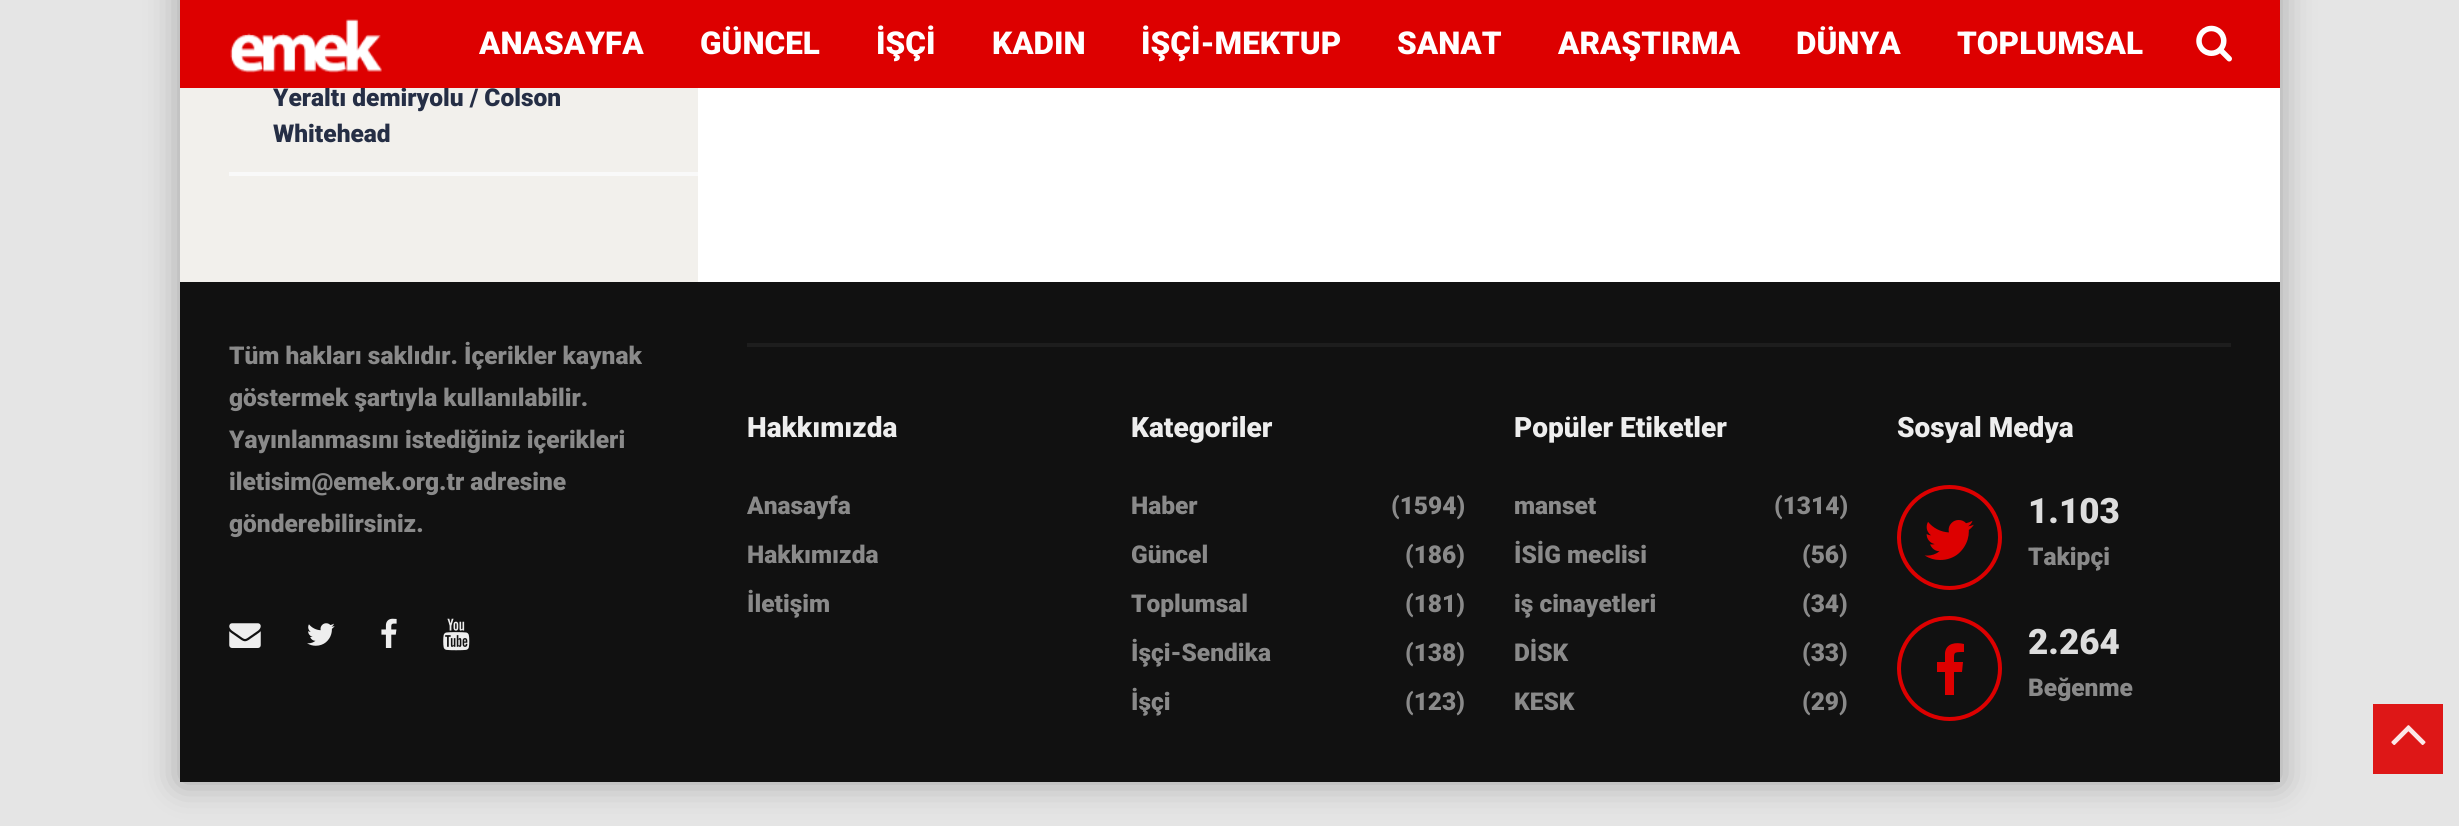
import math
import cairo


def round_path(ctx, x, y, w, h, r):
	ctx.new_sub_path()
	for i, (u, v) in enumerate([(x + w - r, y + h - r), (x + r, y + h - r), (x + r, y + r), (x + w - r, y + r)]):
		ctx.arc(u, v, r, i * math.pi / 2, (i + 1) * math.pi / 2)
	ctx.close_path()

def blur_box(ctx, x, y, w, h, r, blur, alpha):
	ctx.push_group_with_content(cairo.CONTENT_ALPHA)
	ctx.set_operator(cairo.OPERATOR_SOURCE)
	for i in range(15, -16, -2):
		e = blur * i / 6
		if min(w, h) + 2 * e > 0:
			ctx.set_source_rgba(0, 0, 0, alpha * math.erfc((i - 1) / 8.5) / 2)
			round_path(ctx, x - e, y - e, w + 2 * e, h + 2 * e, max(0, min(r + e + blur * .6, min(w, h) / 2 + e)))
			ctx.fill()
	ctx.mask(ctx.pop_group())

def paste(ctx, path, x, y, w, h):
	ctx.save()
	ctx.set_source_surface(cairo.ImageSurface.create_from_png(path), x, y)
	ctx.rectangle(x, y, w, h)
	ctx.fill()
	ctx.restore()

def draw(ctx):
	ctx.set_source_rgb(0.898, 0.898, 0.898)
	ctx.paint()
	ctx.set_source_rgb(0, 0, 0)
	blur_box(ctx, 180, -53, 2100, 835, 0, 17.5, 0.3)
	ctx.set_source_rgb(1, 1, 1)
	ctx.rectangle(698, 88, 1582, 194)
	ctx.fill()
	ctx.set_source_rgb(0.949, 0.941, 0.922)
	ctx.rectangle(180, 88, 518, 194)
	ctx.fill()
	ctx.select_font_face('Roboto Black')
	ctx.set_font_size(24.5)
	ctx.set_source_rgb(0.145, 0.18, 0.271)
	ctx.move_to(273, 106)
	ctx.show_text('Yeraltı demiryolu / Colson')
	ctx.set_source_rgb(0.867, 0, 0)
	ctx.rectangle(180, 0, 2100, 88)
	ctx.fill()
	paste(ctx, 'media/1.png', 230, 19, 152, 54)
	ctx.set_font_size(31.5)
	ctx.set_source_rgb(1, 1, 1)
	for x, y, s in [
		(479, 54, 'ANASAYFA'),
		(700, 54, 'GÜNCEL'),
		(876, 54, 'İŞÇİ'),
		(992, 54, 'KADIN'),
		(1141, 54, 'İŞÇİ-MEKTUP'),
		(1397, 54, 'SANAT'),
		(1558, 54, 'ARAŞTIRMA'),
		(1796, 54, 'DÜNYA'),
		(1957, 54, 'TOPLUMSAL'),
	]:
		ctx.move_to(x, y)
		ctx.show_text(s)
	paste(ctx, 'media/2.png', 2196, 25, 36, 37)
	ctx.set_source_rgb(0.973, 0.973, 0.973)
	ctx.rectangle(229, 172, 469, 4)
	ctx.fill()
	ctx.set_font_size(24.5)
	ctx.set_source_rgb(0.145, 0.18, 0.271)
	ctx.move_to(273, 142)
	ctx.show_text('Whitehead')
	ctx.set_source_rgb(0.067, 0.067, 0.067)
	ctx.rectangle(180, 282, 2100, 500)
	ctx.fill()
	ctx.set_source_rgb(0.541, 0.541, 0.541)
	for x, y, s in [
		(229, 364, 'Tüm hakları saklıdır. İçerikler kaynak'),
		(229, 406, 'göstermek şartıyla kullanılabilir.'),
		(229, 448, 'Yayınlanmasını istediğiniz içerikleri'),
		(229, 490, 'iletisim@emek.org.tr adresine'),
		(229, 532, 'gönderebilirsiniz.'),
	]:
		ctx.move_to(x, y)
		ctx.show_text(s)
	paste(ctx, 'media/3.png', 229, 623, 32, 25)
	paste(ctx, 'media/4.png', 307, 623, 28, 23)
	paste(ctx, 'media/5.png', 381, 618, 16, 30)
	paste(ctx, 'media/6.png', 443, 618, 27, 33)
	ctx.set_source_rgb(0.114, 0.114, 0.114)
	ctx.rectangle(747, 343, 1484, 4)
	ctx.fill()
	ctx.set_font_size(28)
	ctx.set_source_rgb(0.933, 0.933, 0.933)
	ctx.move_to(747, 437)
	ctx.show_text('Hakkımızda')
	ctx.set_font_size(24.5)
	ctx.set_source_rgb(0.541, 0.541, 0.541)
	for x, y, s in [
		(747, 514, 'Anasayfa'),
		(747, 563, 'Hakkımızda'),
		(747, 612, 'İletişim'),
	]:
		ctx.move_to(x, y)
		ctx.show_text(s)
	ctx.set_font_size(28)
	ctx.set_source_rgb(0.933, 0.933, 0.933)
	ctx.move_to(1131, 437)
	ctx.show_text('Kategoriler')
	ctx.set_font_size(24.5)
	ctx.set_source_rgb(0.541, 0.541, 0.541)
	for x, y, s in [
		(1131, 514, 'Haber'),
		(1391, 514, '(1594)'),
		(1131, 563, 'Güncel'),
		(1405, 563, '(186)'),
		(1131, 612, 'Toplumsal'),
		(1405, 612, '(181)'),
		(1131, 661, 'İşçi-Sendika'),
		(1405, 661, '(138)'),
		(1131, 710, 'İşçi'),
		(1405, 710, '(123)'),
	]:
		ctx.move_to(x, y)
		ctx.show_text(s)
	ctx.set_font_size(28)
	ctx.set_source_rgb(0.933, 0.933, 0.933)
	ctx.move_to(1514, 437)
	ctx.show_text('Popüler Etiketler')
	ctx.set_font_size(24.5)
	ctx.set_source_rgb(0.541, 0.541, 0.541)
	for x, y, s in [
		(1514, 514, 'manset'),
		(1774, 514, '(1314)'),
		(1514, 563, 'İSİG meclisi'),
		(1802, 563, '(56)'),
		(1514, 612, 'iş cinayetleri'),
		(1802, 612, '(34)'),
		(1514, 661, 'DİSK'),
		(1802, 661, '(33)'),
		(1514, 710, 'KESK'),
		(1802, 710, '(29)'),
	]:
		ctx.move_to(x, y)
		ctx.show_text(s)
	ctx.set_font_size(28)
	ctx.set_source_rgb(0.933, 0.933, 0.933)
	ctx.move_to(1897, 437)
	ctx.show_text('Sosyal Medya')
	ctx.new_path()
	ctx.arc(1949.5, 537.5, 50.5, 0, 2 * math.pi)
	ctx.set_source_rgb(0.867, 0, 0)
	ctx.set_line_width(4)
	ctx.stroke()
	paste(ctx, 'media/7.png', 1924, 520, 50, 40)
	ctx.set_font_size(35)
	ctx.set_source_rgb(0.867, 0.867, 0.867)
	ctx.move_to(2028, 523)
	ctx.show_text('1.103')
	ctx.set_font_size(24.5)
	ctx.set_source_rgb(0.541, 0.541, 0.541)
	ctx.move_to(2028, 565)
	ctx.show_text('Takipçi')
	ctx.new_path()
	ctx.arc(1949.5, 668.5, 50.5, 0, 2 * math.pi)
	ctx.set_source_rgb(0.867, 0, 0)
	ctx.stroke()
	ctx.new_path()
	ctx.move_to(1964, 644)
	ctx.line_to(1964, 652)
	ctx.curve_to(1953, 652, 1954, 652, 1954, 662)
	ctx.line_to(1963, 662)
	ctx.line_to(1962, 672)
	ctx.line_to(1954, 672)
	ctx.line_to(1954, 695)
	ctx.line_to(1945, 695)
	ctx.line_to(1945, 672)
	ctx.line_to(1937, 672)
	ctx.line_to(1937, 662)
	ctx.line_to(1945, 662)
	ctx.line_to(1945, 653)
	ctx.curve_to(1946, 643, 1956, 642, 1964, 644)
	ctx.close_path()
	ctx.fill()
	ctx.set_font_size(35)
	ctx.set_source_rgb(0.867, 0.867, 0.867)
	ctx.move_to(2028, 654)
	ctx.show_text('2.264')
	ctx.set_font_size(24.5)
	ctx.set_source_rgb(0.541, 0.541, 0.541)
	ctx.move_to(2028, 696)
	ctx.show_text('Beğenme')
	ctx.set_source_rgb(0.871, 0.09, 0.09)
	ctx.rectangle(2373, 704, 70, 70)
	ctx.fill()
	paste(ctx, 'media/8.png', 2391, 725, 35, 20)


surface = cairo.ImageSurface(cairo.FORMAT_RGB24, 2459, 826)
ctx = cairo.Context(surface)
options = cairo.FontOptions()
options.set_hint_metrics(cairo.HINT_METRICS_OFF)
options.set_hint_style(cairo.HINT_STYLE_NONE)
ctx.set_font_options(options)
ctx.set_miter_limit(4)
draw(ctx)
surface.write_to_png('image.png')
